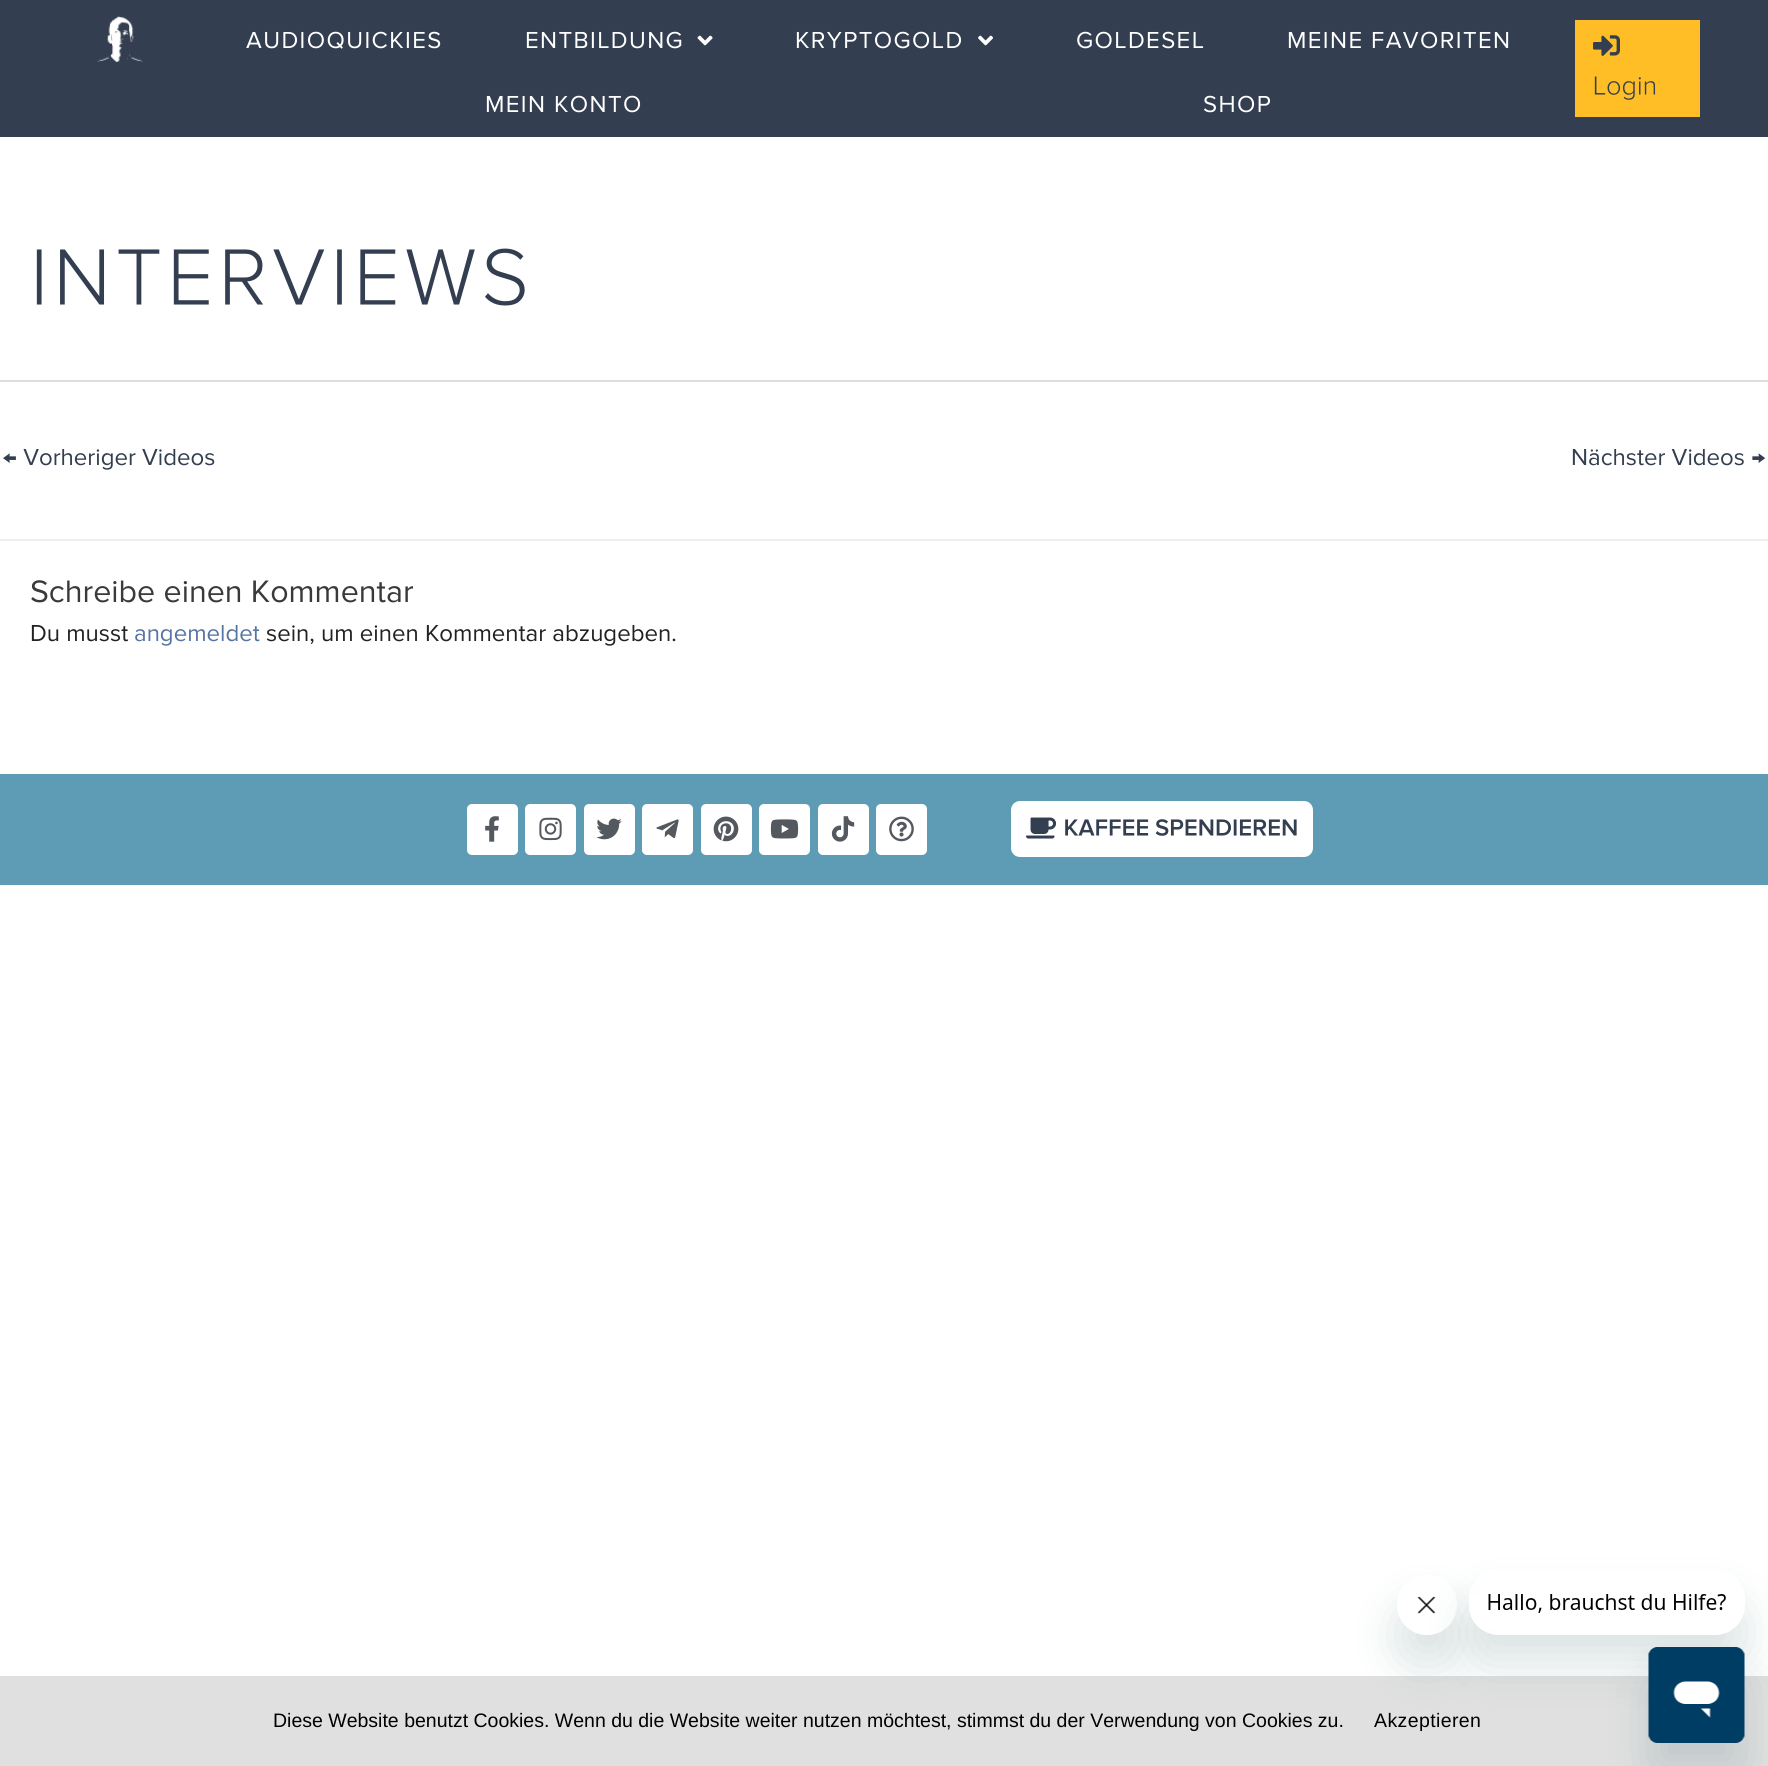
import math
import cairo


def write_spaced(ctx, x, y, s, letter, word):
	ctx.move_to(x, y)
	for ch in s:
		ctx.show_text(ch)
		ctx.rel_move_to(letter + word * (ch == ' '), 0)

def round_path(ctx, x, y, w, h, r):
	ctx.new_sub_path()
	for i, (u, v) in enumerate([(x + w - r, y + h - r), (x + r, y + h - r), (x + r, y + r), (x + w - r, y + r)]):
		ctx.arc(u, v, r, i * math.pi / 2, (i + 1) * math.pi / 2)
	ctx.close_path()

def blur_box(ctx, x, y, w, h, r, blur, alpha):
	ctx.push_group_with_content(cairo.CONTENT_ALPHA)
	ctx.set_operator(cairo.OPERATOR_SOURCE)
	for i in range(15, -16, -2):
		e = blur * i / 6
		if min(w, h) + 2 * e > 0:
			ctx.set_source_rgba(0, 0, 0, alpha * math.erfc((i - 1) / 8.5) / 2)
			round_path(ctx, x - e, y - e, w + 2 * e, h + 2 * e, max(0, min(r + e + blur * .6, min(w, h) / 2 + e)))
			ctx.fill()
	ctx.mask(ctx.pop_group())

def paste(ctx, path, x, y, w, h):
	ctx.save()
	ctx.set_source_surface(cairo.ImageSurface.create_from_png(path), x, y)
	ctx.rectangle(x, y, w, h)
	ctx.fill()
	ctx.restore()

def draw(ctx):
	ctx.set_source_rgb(1, 1, 1)
	ctx.paint()
	ctx.set_source_rgb(0.2, 0.243, 0.314)
	ctx.rectangle(0, 0, 1768, 137)
	ctx.fill()
	paste(ctx, 'media/1.png', 97, 16, 46, 46)
	ctx.select_font_face('Proxima Nova')
	ctx.set_font_size(24)
	ctx.set_source_rgb(1, 1, 1)
	write_spaced(ctx, 246, 48, 'AUDIOQUICKIES', 1.4, 0)
	write_spaced(ctx, 525, 48, 'ENTBILDUNG', 1.4, 0)
	paste(ctx, 'media/2.png', 697, 35, 16, 11)
	write_spaced(ctx, 795, 48, 'KRYPTOGOLD', 1.4, 0)
	paste(ctx, 'media/3.png', 978, 35, 15, 11)
	for x, y, s in [
		(1076, 48, 'GOLDESEL'),
		(1287, 48, 'MEINE FAVORITEN'),
		(485, 112, 'MEIN KONTO'),
		(1203, 112, 'SHOP'),
	]:
		write_spaced(ctx, x, y, s, 1.4, 0)
	ctx.set_source_rgb(1, 0.745, 0.145)
	ctx.rectangle(1575, 20, 125, 97)
	ctx.fill()
	paste(ctx, 'media/4.png', 1593, 35, 27, 21)
	paste(ctx, 'media/5.png', 1594, 76, 62, 24)
	paste(ctx, 'media/6.png', 36, 248, 489, 58)
	ctx.set_source_rgb(0.867, 0.867, 0.867)
	ctx.rectangle(0, 380, 1768, 2)
	ctx.fill()
	ctx.set_source_rgb(0.2, 0.243, 0.314)
	ctx.move_to(3, 465)
	ctx.show_text('← Vorheriger Videos')
	ctx.move_to(1571, 465)
	ctx.show_text('Nächster Videos →')
	ctx.set_source_rgb(0.933, 0.933, 0.933)
	ctx.rectangle(0, 539, 1768, 2)
	ctx.fill()
	ctx.set_font_size(32.2)
	ctx.set_source_rgb(0.227, 0.227, 0.227)
	ctx.move_to(30, 602)
	ctx.show_text('Schreibe einen Kommentar')
	ctx.set_font_size(24)
	ctx.set_source_rgb(0.133, 0.133, 0.133)
	ctx.move_to(30, 641)
	ctx.show_text('Du musst')
	ctx.set_source_rgb(0.341, 0.459, 0.639)
	ctx.move_to(134, 641)
	ctx.show_text('angemeldet')
	ctx.set_source_rgb(0.133, 0.133, 0.133)
	ctx.move_to(266, 641)
	ctx.show_text('sein, um einen Kommentar abzugeben.')
	ctx.set_source_rgb(0.369, 0.608, 0.71)
	ctx.rectangle(0, 774, 1768, 111)
	ctx.fill()
	ctx.set_source_rgb(1, 1, 1)
	round_path(ctx, 467, 804, 51, 51, 5)
	ctx.fill()
	paste(ctx, 'media/7.png', 485, 816, 14, 26)
	round_path(ctx, 525, 804, 51, 51, 5)
	ctx.fill()
	paste(ctx, 'media/8.png', 539, 817, 23, 24)
	round_path(ctx, 584, 804, 51, 51, 5)
	ctx.fill()
	paste(ctx, 'media/9.png', 596, 818, 26, 22)
	round_path(ctx, 642, 804, 51, 51, 5)
	ctx.fill()
	paste(ctx, 'media/10.png', 656, 819, 23, 20)
	round_path(ctx, 701, 804, 51, 51, 5)
	ctx.fill()
	paste(ctx, 'media/11.png', 713, 816, 26, 26)
	round_path(ctx, 759, 804, 51, 51, 5)
	ctx.fill()
	paste(ctx, 'media/12.png', 770, 819, 29, 20)
	round_path(ctx, 818, 804, 51, 51, 5)
	ctx.fill()
	paste(ctx, 'media/13.png', 831, 816, 24, 26)
	round_path(ctx, 876, 804, 51, 51, 5)
	ctx.fill()
	paste(ctx, 'media/14.png', 889, 816, 25, 26)
	round_path(ctx, 1011, 801, 302, 56, 9)
	ctx.fill()
	paste(ctx, 'media/15.png', 1026, 817, 31, 22)
	paste(ctx, 'media/16.png', 1065, 819, 84, 17)
	paste(ctx, 'media/17.png', 1155, 819, 142, 17)
	ctx.set_source_rgb(0.878, 0.878, 0.878)
	ctx.rectangle(0, 1676, 1768, 90)
	ctx.fill()
	ctx.select_font_face('Liberation Sans')
	ctx.set_font_size(19.5)
	ctx.set_source_rgb(0, 0, 0)
	ctx.move_to(273, 1727)
	ctx.show_text('Diese Website benutzt Cookies. Wenn du die Website weiter nutzen möchtest, stimmst du der Verwendung von Cookies zu.')
	write_spaced(ctx, 1374, 1727, 'Akzeptieren', 0.4, 0)
	ctx.save()
	ctx.set_fill_rule(cairo.FILL_RULE_EVEN_ODD)
	ctx.new_path()
	ctx.move_to(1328, 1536)
	ctx.line_to(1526, 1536)
	ctx.line_to(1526, 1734)
	ctx.line_to(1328, 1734)
	ctx.close_path()
	ctx.move_to(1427, 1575)
	ctx.curve_to(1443.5, 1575, 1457, 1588.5, 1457, 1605)
	ctx.curve_to(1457, 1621.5, 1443.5, 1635, 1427, 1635)
	ctx.curve_to(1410.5, 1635, 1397, 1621.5, 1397, 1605)
	ctx.curve_to(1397, 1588.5, 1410.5, 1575, 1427, 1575)
	ctx.close_path()
	ctx.clip()
	ctx.set_source_rgb(0.09, 0.286, 0.302)
	blur_box(ctx, 1397, 1605, 60, 60, 30, 22.5, 0.15)
	ctx.restore()
	paste(ctx, 'media/19.png', 1417, 1596, 19, 18)
	ctx.save()
	ctx.set_fill_rule(cairo.FILL_RULE_EVEN_ODD)
	ctx.new_path()
	ctx.move_to(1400, 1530)
	ctx.line_to(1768, 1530)
	ctx.line_to(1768, 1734)
	ctx.line_to(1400, 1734)
	ctx.close_path()
	ctx.move_to(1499, 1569)
	ctx.line_to(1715, 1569)
	ctx.curve_to(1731.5, 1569, 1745, 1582.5, 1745, 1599)
	ctx.line_to(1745, 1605)
	ctx.curve_to(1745, 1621.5, 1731.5, 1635, 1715, 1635)
	ctx.line_to(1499, 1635)
	ctx.curve_to(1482.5, 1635, 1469, 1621.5, 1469, 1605)
	ctx.line_to(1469, 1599)
	ctx.curve_to(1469, 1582.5, 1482.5, 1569, 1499, 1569)
	ctx.close_path()
	ctx.clip()
	ctx.set_source_rgb(0.09, 0.286, 0.302)
	blur_box(ctx, 1469, 1599, 276, 66, 30, 22.5, 0.15)
	ctx.restore()
	paste(ctx, 'media/18.png', 1469, 1594, 257, 36)
	ctx.set_source_rgb(0.09, 0.286, 0.302)
	blur_box(ctx, 1649, 1677, 96, 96, 9, 22.5, 0.15)
	paste(ctx, 'media/20.png', 1648, 1647, 97, 96)


surface = cairo.ImageSurface(cairo.FORMAT_RGB24, 1768, 1766)
ctx = cairo.Context(surface)
options = cairo.FontOptions()
options.set_hint_metrics(cairo.HINT_METRICS_OFF)
options.set_hint_style(cairo.HINT_STYLE_NONE)
ctx.set_font_options(options)
ctx.set_miter_limit(4)
draw(ctx)
surface.write_to_png('image.png')
